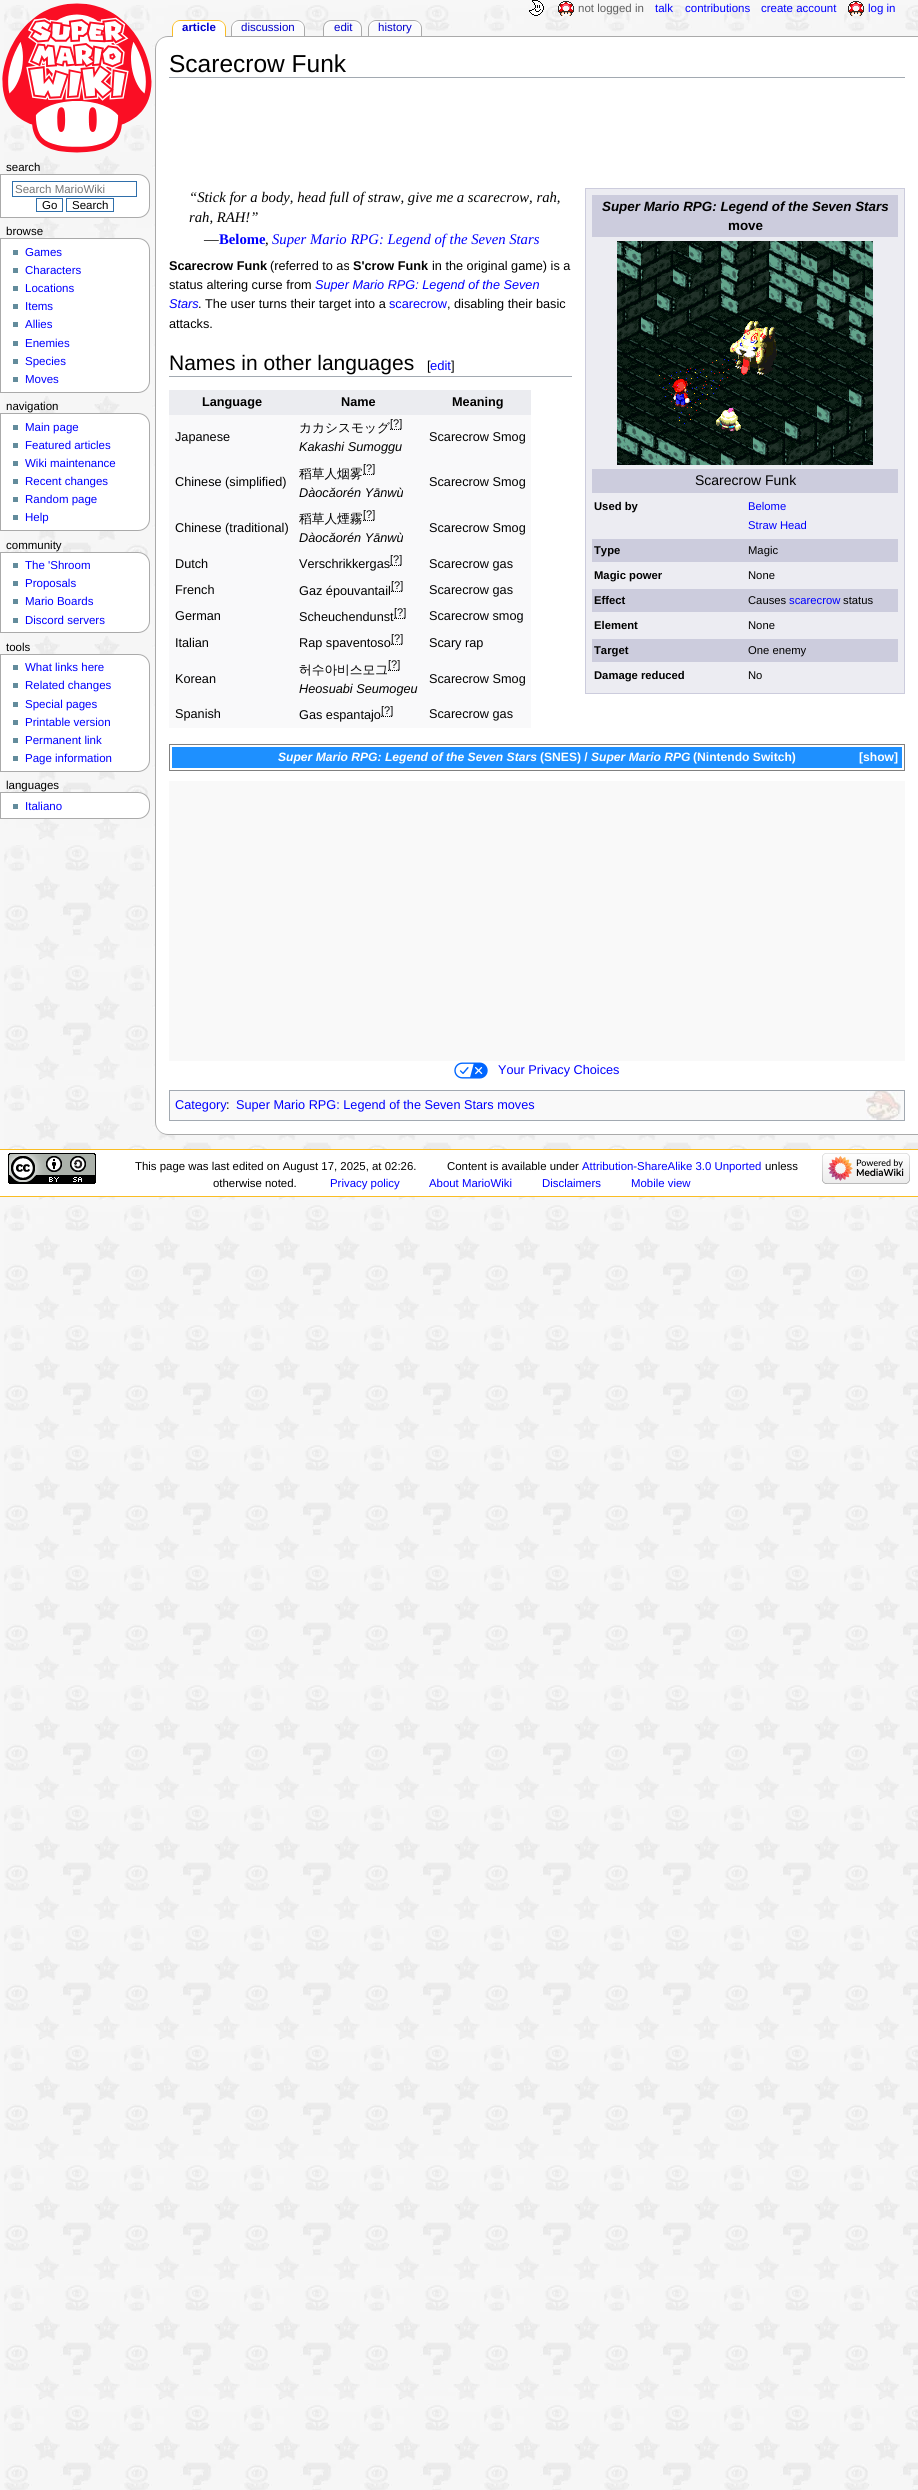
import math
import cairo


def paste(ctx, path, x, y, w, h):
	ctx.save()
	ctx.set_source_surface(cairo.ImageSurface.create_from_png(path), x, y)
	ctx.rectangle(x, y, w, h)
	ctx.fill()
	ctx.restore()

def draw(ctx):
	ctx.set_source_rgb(0.965, 0.965, 0.965)
	ctx.paint()
	paste(ctx, 'media/1.png', 4, 5, 914, 2485)
	paste(ctx, 'media/2.png', 2, 3, 150, 150)
	paste(ctx, 'media/3.png', 529, 0, 15, 16)
	paste(ctx, 'media/4.png', 558, 1, 16, 15)
	ctx.select_font_face('Liberation Sans')
	ctx.set_font_size(11.5)
	ctx.set_source_rgb(0.376, 0.376, 0.376)
	ctx.move_to(578, 12)
	ctx.show_text('not logged in')
	ctx.set_source_rgb(0, 0, 1)
	for x, y, s in [
		(655, 12, 'talk'),
		(685, 12, 'contributions'),
		(761, 12, 'create account'),
	]:
		ctx.move_to(x, y)
		ctx.show_text(s)
	paste(ctx, 'media/5.png', 848, 1, 16, 15)
	ctx.move_to(868, 12)
	ctx.show_text('log in')
	ctx.set_source_rgb(1, 1, 1)
	ctx.new_path()
	ctx.move_to(180, 20)
	ctx.line_to(218, 20)
	ctx.curve_to(222.5, 20, 226, 23.5, 226, 28)
	ctx.line_to(226, 45)
	ctx.line_to(172, 45)
	ctx.line_to(172, 28)
	ctx.curve_to(172, 23.5, 175.5, 20, 180, 20)
	ctx.close_path()
	ctx.fill()
	ctx.set_source_rgb(0.98, 0.741, 0.137)
	ctx.set_fill_rule(cairo.FILL_RULE_EVEN_ODD)
	ctx.new_path()
	ctx.move_to(180, 20)
	ctx.line_to(218, 20)
	ctx.curve_to(222, 20, 226, 24, 226, 28)
	ctx.line_to(226, 45)
	ctx.line_to(172, 45)
	ctx.line_to(172, 28)
	ctx.curve_to(172, 24, 176, 20, 180, 20)
	ctx.close_path()
	ctx.move_to(180, 21)
	ctx.line_to(218, 21)
	ctx.curve_to(222, 21, 225, 24, 225, 28)
	ctx.line_to(225, 45)
	ctx.line_to(173, 45)
	ctx.line_to(173, 28)
	ctx.curve_to(173, 24, 176, 21, 180, 21)
	ctx.close_path()
	ctx.fill()
	ctx.set_source_rgb(1, 1, 1)
	ctx.new_path()
	ctx.move_to(239, 20)
	ctx.line_to(297, 20)
	ctx.curve_to(301.5, 20, 305, 23.5, 305, 28)
	ctx.line_to(305, 45)
	ctx.line_to(231, 45)
	ctx.line_to(231, 28)
	ctx.curve_to(231, 23.5, 234.5, 20, 239, 20)
	ctx.close_path()
	ctx.fill()
	ctx.set_source_rgb(0.667, 0.667, 0.667)
	ctx.new_path()
	ctx.move_to(239, 20)
	ctx.line_to(297, 20)
	ctx.curve_to(301, 20, 305, 24, 305, 28)
	ctx.line_to(305, 45)
	ctx.line_to(231, 45)
	ctx.line_to(231, 28)
	ctx.curve_to(231, 24, 235, 20, 239, 20)
	ctx.close_path()
	ctx.move_to(239, 21)
	ctx.line_to(297, 21)
	ctx.curve_to(301, 21, 304, 24, 304, 28)
	ctx.line_to(304, 45)
	ctx.line_to(232, 45)
	ctx.line_to(232, 28)
	ctx.curve_to(232, 24, 235, 21, 239, 21)
	ctx.close_path()
	ctx.fill()
	ctx.set_source_rgb(0.984, 0.984, 0.984)
	ctx.new_path()
	ctx.move_to(243, 21)
	ctx.line_to(293, 21)
	ctx.curve_to(299, 21, 304, 26, 304, 32)
	ctx.line_to(304, 37)
	ctx.line_to(232, 37)
	ctx.line_to(232, 32)
	ctx.curve_to(232, 26, 237, 21, 243, 21)
	ctx.close_path()
	ctx.fill()
	ctx.set_source_rgb(1, 1, 1)
	ctx.new_path()
	ctx.move_to(331, 20)
	ctx.line_to(354, 20)
	ctx.curve_to(358.5, 20, 362, 23.5, 362, 28)
	ctx.line_to(362, 45)
	ctx.line_to(323, 45)
	ctx.line_to(323, 28)
	ctx.curve_to(323, 23.5, 326.5, 20, 331, 20)
	ctx.close_path()
	ctx.fill()
	ctx.set_source_rgb(0.667, 0.667, 0.667)
	ctx.new_path()
	ctx.move_to(331.5, 20)
	ctx.line_to(353.5, 20)
	ctx.curve_to(358.5, 20, 362, 23.5, 362, 28.5)
	ctx.line_to(362, 45)
	ctx.line_to(323, 45)
	ctx.line_to(323, 28.5)
	ctx.curve_to(323, 23.5, 326.5, 20, 331.5, 20)
	ctx.close_path()
	ctx.move_to(331.5, 21)
	ctx.line_to(353.5, 21)
	ctx.curve_to(358, 21, 361, 24, 361, 28.5)
	ctx.line_to(361, 45)
	ctx.line_to(324, 45)
	ctx.line_to(324, 28.5)
	ctx.curve_to(324, 24, 327, 21, 331.5, 21)
	ctx.close_path()
	ctx.fill()
	ctx.set_source_rgb(0.984, 0.984, 0.984)
	ctx.new_path()
	ctx.move_to(335, 21)
	ctx.line_to(350, 21)
	ctx.curve_to(356, 21, 361, 26, 361, 32)
	ctx.line_to(361, 37)
	ctx.line_to(324, 37)
	ctx.line_to(324, 32)
	ctx.curve_to(324, 26, 329, 21, 335, 21)
	ctx.close_path()
	ctx.fill()
	ctx.set_source_rgb(1, 1, 1)
	ctx.new_path()
	ctx.move_to(376, 20)
	ctx.line_to(414, 20)
	ctx.curve_to(418.5, 20, 422, 23.5, 422, 28)
	ctx.line_to(422, 45)
	ctx.line_to(368, 45)
	ctx.line_to(368, 28)
	ctx.curve_to(368, 23.5, 371.5, 20, 376, 20)
	ctx.close_path()
	ctx.fill()
	ctx.set_source_rgb(0.667, 0.667, 0.667)
	ctx.new_path()
	ctx.move_to(376, 20)
	ctx.line_to(414, 20)
	ctx.curve_to(418, 20, 422, 24, 422, 28)
	ctx.line_to(422, 45)
	ctx.line_to(368, 45)
	ctx.line_to(368, 28)
	ctx.curve_to(368, 24, 372, 20, 376, 20)
	ctx.close_path()
	ctx.move_to(376, 21)
	ctx.line_to(414, 21)
	ctx.curve_to(418, 21, 421, 24, 421, 28)
	ctx.line_to(421, 45)
	ctx.line_to(369, 45)
	ctx.line_to(369, 28)
	ctx.curve_to(369, 24, 372, 21, 376, 21)
	ctx.close_path()
	ctx.fill()
	ctx.set_source_rgb(0.984, 0.984, 0.984)
	ctx.new_path()
	ctx.move_to(380, 21)
	ctx.line_to(410, 21)
	ctx.curve_to(416, 21, 421, 26, 421, 32)
	ctx.line_to(421, 37)
	ctx.line_to(369, 37)
	ctx.line_to(369, 32)
	ctx.curve_to(369, 26, 374, 21, 380, 21)
	ctx.close_path()
	ctx.fill()
	ctx.set_source_rgb(1, 1, 1)
	ctx.new_path()
	ctx.move_to(168, 36)
	ctx.line_to(918, 36)
	ctx.line_to(918, 1135)
	ctx.line_to(168, 1135)
	ctx.curve_to(161, 1135, 155, 1129, 155, 1122)
	ctx.line_to(155, 49)
	ctx.curve_to(155, 42, 161, 36, 168, 36)
	ctx.close_path()
	ctx.fill()
	ctx.set_source_rgb(0.667, 0.667, 0.667)
	ctx.new_path()
	ctx.move_to(168, 36)
	ctx.line_to(918, 36)
	ctx.line_to(918, 1135)
	ctx.line_to(168, 1135)
	ctx.curve_to(161, 1135, 155, 1129, 155, 1122)
	ctx.line_to(155, 49)
	ctx.curve_to(155, 42, 161, 36, 168, 36)
	ctx.close_path()
	ctx.move_to(168, 37)
	ctx.line_to(918, 37)
	ctx.line_to(918, 1134)
	ctx.line_to(168, 1134)
	ctx.curve_to(161, 1134, 156, 1129, 156, 1122)
	ctx.line_to(156, 49)
	ctx.curve_to(156, 42, 161, 37, 168, 37)
	ctx.close_path()
	ctx.fill()
	ctx.set_source_rgb(1, 1, 1)
	ctx.new_path()
	ctx.move_to(184, 21)
	ctx.line_to(214, 21)
	ctx.curve_to(220, 21, 225, 26, 225, 32)
	ctx.line_to(225, 37)
	ctx.line_to(173, 37)
	ctx.line_to(173, 32)
	ctx.curve_to(173, 26, 178, 21, 184, 21)
	ctx.close_path()
	ctx.fill()
	ctx.select_font_face('Liberation Sans', cairo.FONT_SLANT_NORMAL, cairo.FONT_WEIGHT_BOLD)
	ctx.set_source_rgb(0, 0, 0.8)
	ctx.move_to(182, 31)
	ctx.show_text('article')
	ctx.select_font_face('Liberation Sans')
	for x, y, s in [
		(241, 31, 'discussion'),
		(334, 31, 'edit'),
		(378, 31, 'history'),
	]:
		ctx.move_to(x, y)
		ctx.show_text(s)
	ctx.set_source_rgb(0, 0, 0)
	ctx.move_to(6, 171)
	ctx.show_text('search')
	ctx.set_source_rgb(1, 1, 1)
	ctx.new_path()
	ctx.move_to(0.5, 174.5)
	ctx.line_to(138, 174.5)
	ctx.curve_to(144.5, 174.5, 149.5, 179.5, 149.5, 186)
	ctx.line_to(149.5, 206)
	ctx.curve_to(149.5, 212.5, 144.5, 217.5, 138, 217.5)
	ctx.line_to(0.5, 217.5)
	ctx.close_path()
	ctx.fill_preserve()
	ctx.set_source_rgb(0.667, 0.667, 0.667)
	ctx.set_line_width(1)
	ctx.stroke()
	ctx.rectangle(12.5, 181.5, 124, 15)
	ctx.set_source_rgb(0.184, 0.435, 0.671)
	ctx.stroke()
	ctx.set_source_rgb(0.459, 0.459, 0.459)
	ctx.move_to(15, 193)
	ctx.show_text('Search MarioWiki')
	ctx.rectangle(36.5, 198.5, 26, 13)
	ctx.set_source_rgb(0.184, 0.435, 0.671)
	ctx.stroke()
	ctx.set_source_rgb(0, 0, 0)
	ctx.move_to(42, 209)
	ctx.show_text('Go')
	ctx.rectangle(66.5, 198.5, 47, 13)
	ctx.set_source_rgb(0.184, 0.435, 0.671)
	ctx.stroke()
	ctx.set_source_rgb(0, 0, 0)
	ctx.move_to(72, 209)
	ctx.show_text('Search')
	ctx.move_to(6, 235)
	ctx.show_text('browse')
	ctx.set_source_rgb(1, 1, 1)
	ctx.new_path()
	ctx.move_to(0.5, 238.5)
	ctx.line_to(138, 238.5)
	ctx.curve_to(144.5, 238.5, 149.5, 243.5, 149.5, 250)
	ctx.line_to(149.5, 381)
	ctx.curve_to(149.5, 387.5, 144.5, 392.5, 138, 392.5)
	ctx.line_to(0.5, 392.5)
	ctx.close_path()
	ctx.fill_preserve()
	ctx.set_source_rgb(0.667, 0.667, 0.667)
	ctx.stroke()
	ctx.set_source_rgb(0.388, 0.549, 0.612)
	ctx.rectangle(13, 250, 5, 5)
	ctx.fill()
	ctx.set_source_rgb(0, 0, 1)
	ctx.move_to(25, 256)
	ctx.show_text('Games')
	ctx.set_source_rgb(0.388, 0.549, 0.612)
	ctx.rectangle(13, 268, 5, 5)
	ctx.fill()
	ctx.set_source_rgb(0, 0, 1)
	ctx.move_to(25, 274)
	ctx.show_text('Characters')
	ctx.set_source_rgb(0.388, 0.549, 0.612)
	ctx.rectangle(13, 286, 5, 5)
	ctx.fill()
	ctx.set_source_rgb(0, 0, 1)
	ctx.move_to(25, 292)
	ctx.show_text('Locations')
	ctx.set_source_rgb(0.388, 0.549, 0.612)
	ctx.rectangle(13, 304, 5, 5)
	ctx.fill()
	ctx.set_source_rgb(0, 0, 1)
	ctx.move_to(25, 310)
	ctx.show_text('Items')
	ctx.set_source_rgb(0.388, 0.549, 0.612)
	ctx.rectangle(13, 322, 5, 5)
	ctx.fill()
	ctx.set_source_rgb(0, 0, 1)
	ctx.move_to(25, 328)
	ctx.show_text('Allies')
	ctx.set_source_rgb(0.388, 0.549, 0.612)
	ctx.rectangle(13, 341, 5, 5)
	ctx.fill()
	ctx.set_source_rgb(0, 0, 1)
	ctx.move_to(25, 347)
	ctx.show_text('Enemies')
	ctx.set_source_rgb(0.388, 0.549, 0.612)
	ctx.rectangle(13, 359, 5, 5)
	ctx.fill()
	ctx.set_source_rgb(0, 0, 1)
	ctx.move_to(25, 365)
	ctx.show_text('Species')
	ctx.set_source_rgb(0.388, 0.549, 0.612)
	ctx.rectangle(13, 377, 5, 5)
	ctx.fill()
	ctx.set_source_rgb(0, 0, 1)
	ctx.move_to(25, 383)
	ctx.show_text('Moves')
	ctx.set_source_rgb(0, 0, 0)
	ctx.move_to(6, 410)
	ctx.show_text('navigation')
	ctx.set_source_rgb(1, 1, 1)
	ctx.new_path()
	ctx.move_to(0.5, 413.5)
	ctx.line_to(138, 413.5)
	ctx.curve_to(144.5, 413.5, 149.5, 418.5, 149.5, 425)
	ctx.line_to(149.5, 519)
	ctx.curve_to(149.5, 525.5, 144.5, 530.5, 138, 530.5)
	ctx.line_to(0.5, 530.5)
	ctx.close_path()
	ctx.fill_preserve()
	ctx.set_source_rgb(0.667, 0.667, 0.667)
	ctx.stroke()
	ctx.set_source_rgb(0.388, 0.549, 0.612)
	ctx.rectangle(13, 425, 5, 5)
	ctx.fill()
	ctx.set_source_rgb(0, 0, 1)
	ctx.move_to(25, 431)
	ctx.show_text('Main page')
	ctx.set_source_rgb(0.388, 0.549, 0.612)
	ctx.rectangle(13, 443, 5, 5)
	ctx.fill()
	ctx.set_source_rgb(0, 0, 1)
	ctx.move_to(25, 449)
	ctx.show_text('Featured articles')
	ctx.set_source_rgb(0.388, 0.549, 0.612)
	ctx.rectangle(13, 461, 5, 5)
	ctx.fill()
	ctx.set_source_rgb(0, 0, 1)
	ctx.move_to(25, 467)
	ctx.show_text('Wiki maintenance')
	ctx.set_source_rgb(0.388, 0.549, 0.612)
	ctx.rectangle(13, 479, 5, 5)
	ctx.fill()
	ctx.set_source_rgb(0, 0, 1)
	ctx.move_to(25, 485)
	ctx.show_text('Recent changes')
	ctx.set_source_rgb(0.388, 0.549, 0.612)
	ctx.rectangle(13, 497, 5, 5)
	ctx.fill()
	ctx.set_source_rgb(0, 0, 1)
	ctx.move_to(25, 503)
	ctx.show_text('Random page')
	ctx.set_source_rgb(0.388, 0.549, 0.612)
	ctx.rectangle(13, 515, 5, 5)
	ctx.fill()
	ctx.set_source_rgb(0, 0, 1)
	ctx.move_to(25, 521)
	ctx.show_text('Help')
	ctx.set_source_rgb(0, 0, 0)
	ctx.move_to(6, 549)
	ctx.show_text('community')
	ctx.set_source_rgb(1, 1, 1)
	ctx.new_path()
	ctx.move_to(0.5, 552.5)
	ctx.line_to(138, 552.5)
	ctx.curve_to(144.5, 552.5, 149.5, 557.5, 149.5, 564)
	ctx.line_to(149.5, 621)
	ctx.curve_to(149.5, 627.5, 144.5, 632.5, 138, 632.5)
	ctx.line_to(0.5, 632.5)
	ctx.close_path()
	ctx.fill_preserve()
	ctx.set_source_rgb(0.667, 0.667, 0.667)
	ctx.stroke()
	ctx.set_source_rgb(0.388, 0.549, 0.612)
	ctx.rectangle(13, 563, 5, 5)
	ctx.fill()
	ctx.set_source_rgb(0, 0, 1)
	ctx.move_to(25, 569)
	ctx.show_text('The \'Shroom')
	ctx.set_source_rgb(0.388, 0.549, 0.612)
	ctx.rectangle(13, 581, 5, 5)
	ctx.fill()
	ctx.set_source_rgb(0, 0, 1)
	ctx.move_to(25, 587)
	ctx.show_text('Proposals')
	ctx.set_source_rgb(0.388, 0.549, 0.612)
	ctx.rectangle(13, 599, 5, 5)
	ctx.fill()
	ctx.set_source_rgb(0, 0, 1)
	ctx.move_to(25, 605)
	ctx.show_text('Mario Boards')
	ctx.set_source_rgb(0.388, 0.549, 0.612)
	ctx.rectangle(13, 618, 5, 5)
	ctx.fill()
	ctx.set_source_rgb(0, 0, 1)
	ctx.move_to(25, 624)
	ctx.show_text('Discord servers')
	ctx.set_source_rgb(0, 0, 0)
	ctx.move_to(6, 651)
	ctx.show_text('tools')
	ctx.set_source_rgb(1, 1, 1)
	ctx.new_path()
	ctx.move_to(0.5, 654.5)
	ctx.line_to(138, 654.5)
	ctx.curve_to(144.5, 654.5, 149.5, 659.5, 149.5, 666)
	ctx.line_to(149.5, 760)
	ctx.curve_to(149.5, 766.5, 144.5, 771.5, 138, 771.5)
	ctx.line_to(0.5, 771.5)
	ctx.close_path()
	ctx.fill_preserve()
	ctx.set_source_rgb(0.667, 0.667, 0.667)
	ctx.stroke()
	ctx.set_source_rgb(0.388, 0.549, 0.612)
	ctx.rectangle(13, 665, 5, 5)
	ctx.fill()
	ctx.set_source_rgb(0, 0, 1)
	ctx.move_to(25, 671)
	ctx.show_text('What links here')
	ctx.set_source_rgb(0.388, 0.549, 0.612)
	ctx.rectangle(13, 683, 5, 5)
	ctx.fill()
	ctx.set_source_rgb(0, 0, 1)
	ctx.move_to(25, 689)
	ctx.show_text('Related changes')
	ctx.set_source_rgb(0.388, 0.549, 0.612)
	ctx.rectangle(13, 702, 5, 5)
	ctx.fill()
	ctx.set_source_rgb(0, 0, 1)
	ctx.move_to(25, 708)
	ctx.show_text('Special pages')
	ctx.set_source_rgb(0.388, 0.549, 0.612)
	ctx.rectangle(13, 720, 5, 5)
	ctx.fill()
	ctx.set_source_rgb(0, 0, 1)
	ctx.move_to(25, 726)
	ctx.show_text('Printable version')
	ctx.set_source_rgb(0.388, 0.549, 0.612)
	ctx.rectangle(13, 738, 5, 5)
	ctx.fill()
	ctx.set_source_rgb(0, 0, 1)
	ctx.move_to(25, 744)
	ctx.show_text('Permanent link')
	ctx.set_source_rgb(0.388, 0.549, 0.612)
	ctx.rectangle(13, 756, 5, 5)
	ctx.fill()
	ctx.set_source_rgb(0, 0, 1)
	ctx.move_to(25, 762)
	ctx.show_text('Page information')
	ctx.set_source_rgb(0, 0, 0)
	ctx.move_to(6, 789)
	ctx.show_text('languages')
	ctx.set_source_rgb(1, 1, 1)
	ctx.new_path()
	ctx.move_to(0.5, 792.5)
	ctx.line_to(138, 792.5)
	ctx.curve_to(144.5, 792.5, 149.5, 797.5, 149.5, 804)
	ctx.line_to(149.5, 807)
	ctx.curve_to(149.5, 813.5, 144.5, 818.5, 138, 818.5)
	ctx.line_to(0.5, 818.5)
	ctx.close_path()
	ctx.fill_preserve()
	ctx.set_source_rgb(0.667, 0.667, 0.667)
	ctx.stroke()
	ctx.set_source_rgb(0.388, 0.549, 0.612)
	ctx.rectangle(13, 804, 5, 5)
	ctx.fill()
	ctx.set_source_rgb(0, 0, 1)
	ctx.move_to(25, 810)
	ctx.show_text('Italiano')
	ctx.set_source_rgb(0.635, 0.663, 0.694)
	ctx.rectangle(169, 77, 736, 1)
	ctx.fill()
	ctx.set_font_size(24.5)
	ctx.set_source_rgb(0, 0, 0)
	ctx.move_to(169, 72)
	ctx.show_text('Scarecrow Funk')
	ctx.select_font_face('Liberation Serif', cairo.FONT_SLANT_ITALIC)
	ctx.set_font_size(14.7)
	ctx.move_to(189, 202)
	ctx.show_text('“Stick for a body, head full of straw, give me a scarecrow, rah,')
	ctx.move_to(189, 222)
	ctx.show_text('rah, RAH!”')
	ctx.select_font_face('Liberation Serif')
	ctx.move_to(204, 244)
	ctx.show_text('—')
	ctx.select_font_face('Liberation Serif', cairo.FONT_SLANT_NORMAL, cairo.FONT_WEIGHT_BOLD)
	ctx.set_source_rgb(0, 0, 1)
	ctx.move_to(219, 244)
	ctx.show_text('Belome')
	ctx.select_font_face('Liberation Serif', cairo.FONT_SLANT_ITALIC)
	ctx.move_to(272, 244)
	ctx.show_text('Super Mario RPG: Legend of the Seven Stars')
	ctx.select_font_face('Liberation Serif')
	ctx.set_source_rgb(0, 0, 0)
	ctx.move_to(265, 244)
	ctx.show_text(',')
	ctx.set_source_rgb(0.925, 0.925, 0.949)
	ctx.rectangle(585.5, 188.5, 319, 505)
	ctx.fill_preserve()
	ctx.set_source_rgb(0.8, 0.8, 0.867)
	ctx.stroke()
	ctx.rectangle(592, 195, 306, 42)
	ctx.fill()
	ctx.select_font_face('Liberation Sans', cairo.FONT_SLANT_ITALIC, cairo.FONT_WEIGHT_BOLD)
	ctx.set_font_size(13.4)
	ctx.set_source_rgb(0, 0, 0)
	ctx.move_to(602, 211)
	ctx.show_text('Super Mario RPG: Legend of the Seven Stars')
	ctx.select_font_face('Liberation Sans', cairo.FONT_SLANT_NORMAL, cairo.FONT_WEIGHT_BOLD)
	ctx.move_to(728, 230)
	ctx.show_text('move')
	paste(ctx, 'media/6.png', 617, 241, 256, 224)
	ctx.set_source_rgb(0.8, 0.8, 0.867)
	ctx.rectangle(592, 469, 306, 24)
	ctx.fill()
	ctx.select_font_face('Liberation Sans')
	ctx.set_font_size(14)
	ctx.set_source_rgb(0, 0, 0)
	ctx.move_to(695, 485)
	ctx.show_text('Scarecrow Funk')
	ctx.select_font_face('Liberation Sans', cairo.FONT_SLANT_NORMAL, cairo.FONT_WEIGHT_BOLD)
	ctx.set_font_size(11.25)
	ctx.move_to(594, 510)
	ctx.show_text('Used by')
	ctx.select_font_face('Liberation Sans')
	ctx.set_source_rgb(0, 0, 1)
	ctx.move_to(748, 510)
	ctx.show_text('Belome')
	ctx.move_to(748, 529)
	ctx.show_text('Straw Head')
	ctx.set_source_rgb(0.8, 0.8, 0.867)
	ctx.rectangle(592, 539, 306, 23)
	ctx.fill()
	ctx.select_font_face('Liberation Sans', cairo.FONT_SLANT_NORMAL, cairo.FONT_WEIGHT_BOLD)
	ctx.set_source_rgb(0, 0, 0)
	ctx.move_to(594, 554)
	ctx.show_text('Type')
	ctx.select_font_face('Liberation Sans')
	ctx.move_to(748, 554)
	ctx.show_text('Magic')
	ctx.select_font_face('Liberation Sans', cairo.FONT_SLANT_NORMAL, cairo.FONT_WEIGHT_BOLD)
	ctx.move_to(594, 579)
	ctx.show_text('Magic power')
	ctx.select_font_face('Liberation Sans')
	ctx.move_to(748, 579)
	ctx.show_text('None')
	ctx.set_source_rgb(0.8, 0.8, 0.867)
	ctx.rectangle(592, 589, 306, 23)
	ctx.fill()
	ctx.select_font_face('Liberation Sans', cairo.FONT_SLANT_NORMAL, cairo.FONT_WEIGHT_BOLD)
	ctx.set_source_rgb(0, 0, 0)
	ctx.move_to(594, 604)
	ctx.show_text('Effect')
	ctx.select_font_face('Liberation Sans')
	ctx.move_to(748, 604)
	ctx.show_text('Causes')
	ctx.set_source_rgb(0, 0, 1)
	ctx.move_to(789, 604)
	ctx.show_text('scarecrow')
	ctx.set_source_rgb(0, 0, 0)
	ctx.move_to(843, 604)
	ctx.show_text('status')
	ctx.select_font_face('Liberation Sans', cairo.FONT_SLANT_NORMAL, cairo.FONT_WEIGHT_BOLD)
	ctx.move_to(594, 629)
	ctx.show_text('Element')
	ctx.select_font_face('Liberation Sans')
	ctx.move_to(748, 629)
	ctx.show_text('None')
	ctx.set_source_rgb(0.8, 0.8, 0.867)
	ctx.rectangle(592, 639, 306, 23)
	ctx.fill()
	ctx.select_font_face('Liberation Sans', cairo.FONT_SLANT_NORMAL, cairo.FONT_WEIGHT_BOLD)
	ctx.set_source_rgb(0, 0, 0)
	ctx.move_to(594, 654)
	ctx.show_text('Target')
	ctx.select_font_face('Liberation Sans')
	ctx.move_to(748, 654)
	ctx.show_text('One enemy')
	ctx.select_font_face('Liberation Sans', cairo.FONT_SLANT_NORMAL, cairo.FONT_WEIGHT_BOLD)
	ctx.move_to(594, 679)
	ctx.show_text('Damage reduced')
	ctx.select_font_face('Liberation Sans')
	ctx.move_to(748, 679)
	ctx.show_text('No')
	ctx.select_font_face('Liberation Sans', cairo.FONT_SLANT_NORMAL, cairo.FONT_WEIGHT_BOLD)
	ctx.set_font_size(12.7)
	ctx.move_to(169, 270)
	ctx.show_text('Scarecrow Funk')
	ctx.select_font_face('Liberation Sans')
	ctx.move_to(270, 270)
	ctx.show_text('(referred to as')
	ctx.select_font_face('Liberation Sans', cairo.FONT_SLANT_NORMAL, cairo.FONT_WEIGHT_BOLD)
	ctx.move_to(353, 270)
	ctx.show_text('S\'crow Funk')
	ctx.select_font_face('Liberation Sans')
	ctx.move_to(432, 270)
	ctx.show_text('in the original game) is a')
	ctx.move_to(169, 289)
	ctx.show_text('status altering curse from')
	ctx.select_font_face('Liberation Sans', cairo.FONT_SLANT_ITALIC)
	ctx.set_source_rgb(0, 0, 1)
	ctx.move_to(315, 289)
	ctx.show_text('Super Mario RPG: Legend of the Seven')
	ctx.move_to(169, 308)
	ctx.show_text('Stars')
	ctx.select_font_face('Liberation Sans')
	ctx.set_source_rgb(0, 0, 0)
	ctx.move_to(198, 308)
	ctx.show_text('. The user turns their target into a')
	ctx.set_source_rgb(0, 0, 1)
	ctx.move_to(389, 308)
	ctx.show_text('scarecrow')
	ctx.set_source_rgb(0, 0, 0)
	ctx.move_to(447, 308)
	ctx.show_text(', disabling their basic')
	ctx.move_to(169, 328)
	ctx.show_text('attacks.')
	ctx.set_source_rgb(0.635, 0.663, 0.694)
	ctx.rectangle(169, 376, 403, 1)
	ctx.fill()
	ctx.set_font_size(21)
	ctx.set_source_rgb(0, 0, 0)
	ctx.move_to(169, 370)
	ctx.show_text('Names in other languages')
	ctx.set_font_size(13)
	ctx.move_to(427, 370)
	ctx.show_text('[')
	ctx.set_source_rgb(0, 0, 1)
	ctx.move_to(430, 370)
	ctx.show_text('edit')
	ctx.set_source_rgb(0, 0, 0)
	ctx.move_to(451, 370)
	ctx.show_text(']')
	ctx.set_source_rgb(0.918, 0.925, 0.941)
	ctx.rectangle(169, 390, 362, 25)
	ctx.fill()
	ctx.select_font_face('Liberation Sans', cairo.FONT_SLANT_NORMAL, cairo.FONT_WEIGHT_BOLD)
	ctx.set_font_size(12.7)
	ctx.set_source_rgb(0, 0, 0)
	for x, y, s in [
		(202, 406, 'Language'),
		(341, 406, 'Name'),
		(452, 406, 'Meaning'),
	]:
		ctx.move_to(x, y)
		ctx.show_text(s)
	ctx.set_source_rgb(0.973, 0.976, 0.98)
	ctx.rectangle(169, 415, 362, 313)
	ctx.fill()
	ctx.select_font_face('Liberation Sans')
	ctx.set_source_rgb(0, 0, 0)
	ctx.move_to(175, 441)
	ctx.show_text('Japanese')
	ctx.select_font_face('WenQuanYi Zen Hei Medium')
	ctx.move_to(299, 432)
	ctx.show_text('カカシスモッグ')
	ctx.new_path()
	ctx.move_to(390, 429.5)
	ctx.line_to(402, 429.5)
	ctx.set_dash([1, 1])
	ctx.stroke()
	ctx.select_font_face('Liberation Sans')
	ctx.set_font_size(11)
	ctx.move_to(390, 427)
	ctx.show_text('[?]')
	ctx.select_font_face('Liberation Sans', cairo.FONT_SLANT_ITALIC)
	ctx.set_font_size(12.7)
	ctx.move_to(299, 451)
	ctx.show_text('Kakashi Sumoggu')
	ctx.select_font_face('Liberation Sans')
	ctx.move_to(429, 441)
	ctx.show_text('Scarecrow Smog')
	ctx.move_to(175, 486)
	ctx.show_text('Chinese (simplified)')
	ctx.select_font_face('WenQuanYi Zen Hei Medium')
	ctx.move_to(299, 478)
	ctx.show_text('稻草人烟雾')
	ctx.new_path()
	ctx.move_to(363, 474.5)
	ctx.line_to(375, 474.5)
	ctx.stroke()
	ctx.select_font_face('Liberation Sans')
	ctx.set_font_size(11)
	ctx.move_to(363, 472)
	ctx.show_text('[?]')
	ctx.select_font_face('Liberation Sans', cairo.FONT_SLANT_ITALIC)
	ctx.set_font_size(12.7)
	ctx.move_to(299, 497)
	ctx.show_text('Dàocǎorén Yānwù')
	ctx.select_font_face('Liberation Sans')
	ctx.move_to(429, 486)
	ctx.show_text('Scarecrow Smog')
	ctx.move_to(175, 532)
	ctx.show_text('Chinese (traditional)')
	ctx.select_font_face('WenQuanYi Zen Hei Medium')
	ctx.move_to(299, 523)
	ctx.show_text('稻草人煙霧')
	ctx.new_path()
	ctx.move_to(363, 520.5)
	ctx.line_to(375, 520.5)
	ctx.stroke()
	ctx.select_font_face('Liberation Sans')
	ctx.set_font_size(11)
	ctx.move_to(363, 518)
	ctx.show_text('[?]')
	ctx.select_font_face('Liberation Sans', cairo.FONT_SLANT_ITALIC)
	ctx.set_font_size(12.7)
	ctx.move_to(299, 542)
	ctx.show_text('Dàocǎorén Yānwù')
	ctx.select_font_face('Liberation Sans')
	for x, y, s in [
		(429, 532, 'Scarecrow Smog'),
		(175, 568, 'Dutch'),
		(299, 568, 'Verschrikkergas'),
	]:
		ctx.move_to(x, y)
		ctx.show_text(s)
	ctx.new_path()
	ctx.move_to(390, 565.5)
	ctx.line_to(402, 565.5)
	ctx.stroke()
	ctx.set_font_size(11)
	ctx.move_to(390, 563)
	ctx.show_text('[?]')
	ctx.set_font_size(12.7)
	for x, y, s in [
		(429, 568, 'Scarecrow gas'),
		(175, 594, 'French'),
		(299, 595, 'Gaz épouvantail'),
	]:
		ctx.move_to(x, y)
		ctx.show_text(s)
	ctx.new_path()
	ctx.move_to(391, 591.5)
	ctx.line_to(403, 591.5)
	ctx.stroke()
	ctx.set_font_size(11)
	ctx.move_to(391, 589)
	ctx.show_text('[?]')
	ctx.set_font_size(12.7)
	for x, y, s in [
		(429, 594, 'Scarecrow gas'),
		(175, 620, 'German'),
		(299, 621, 'Scheuchendunst'),
	]:
		ctx.move_to(x, y)
		ctx.show_text(s)
	ctx.new_path()
	ctx.move_to(394, 618.5)
	ctx.line_to(406, 618.5)
	ctx.stroke()
	ctx.set_font_size(11)
	ctx.move_to(394, 616)
	ctx.show_text('[?]')
	ctx.set_font_size(12.7)
	for x, y, s in [
		(429, 620, 'Scarecrow smog'),
		(175, 647, 'Italian'),
		(299, 647, 'Rap spaventoso'),
	]:
		ctx.move_to(x, y)
		ctx.show_text(s)
	ctx.new_path()
	ctx.move_to(391, 644.5)
	ctx.line_to(403, 644.5)
	ctx.stroke()
	ctx.set_font_size(11)
	ctx.move_to(391, 642)
	ctx.show_text('[?]')
	ctx.set_font_size(12.7)
	ctx.move_to(429, 647)
	ctx.show_text('Scary rap')
	ctx.move_to(175, 683)
	ctx.show_text('Korean')
	ctx.select_font_face('WenQuanYi Zen Hei Medium')
	ctx.move_to(299, 674)
	ctx.show_text('허수아비스모그')
	ctx.new_path()
	ctx.move_to(388, 670.5)
	ctx.line_to(400, 670.5)
	ctx.stroke()
	ctx.select_font_face('Liberation Sans')
	ctx.set_font_size(11)
	ctx.move_to(388, 668)
	ctx.show_text('[?]')
	ctx.select_font_face('Liberation Sans', cairo.FONT_SLANT_ITALIC)
	ctx.set_font_size(12.7)
	ctx.move_to(299, 693)
	ctx.show_text('Heosuabi Seumogeu')
	ctx.select_font_face('Liberation Sans')
	for x, y, s in [
		(429, 683, 'Scarecrow Smog'),
		(175, 718, 'Spanish'),
		(299, 719, 'Gas espantajo'),
	]:
		ctx.move_to(x, y)
		ctx.show_text(s)
	ctx.new_path()
	ctx.move_to(381, 716.5)
	ctx.line_to(393, 716.5)
	ctx.stroke()
	ctx.set_font_size(11)
	ctx.move_to(381, 714)
	ctx.show_text('[?]')
	ctx.set_font_size(12.7)
	ctx.move_to(429, 718)
	ctx.show_text('Scarecrow gas')
	ctx.rectangle(169.5, 744.5, 735, 26)
	ctx.set_source_rgb(0.502, 0.502, 0.502)
	ctx.set_dash([])
	ctx.stroke()
	ctx.set_source_rgb(0.118, 0.565, 1)
	ctx.rectangle(172, 747, 730, 21)
	ctx.fill()
	ctx.select_font_face('Liberation Sans', cairo.FONT_SLANT_ITALIC, cairo.FONT_WEIGHT_BOLD)
	ctx.set_font_size(12.1)
	ctx.set_source_rgb(1, 1, 1)
	ctx.move_to(278, 761)
	ctx.show_text('Super Mario RPG: Legend of the Seven Stars')
	ctx.select_font_face('Liberation Sans', cairo.FONT_SLANT_NORMAL, cairo.FONT_WEIGHT_BOLD)
	ctx.move_to(540, 761)
	ctx.show_text('(SNES) /')
	ctx.select_font_face('Liberation Sans', cairo.FONT_SLANT_ITALIC, cairo.FONT_WEIGHT_BOLD)
	ctx.move_to(591, 761)
	ctx.show_text('Super Mario RPG')
	ctx.select_font_face('Liberation Sans', cairo.FONT_SLANT_NORMAL, cairo.FONT_WEIGHT_BOLD)
	ctx.move_to(693, 761)
	ctx.show_text('(Nintendo Switch)')
	ctx.move_to(859, 761)
	ctx.show_text('[show]')
	ctx.set_source_rgb(0.973, 0.973, 0.973)
	ctx.rectangle(169, 781, 736, 280)
	ctx.fill()
	paste(ctx, 'media/7.png', 454, 1062, 34, 17)
	ctx.select_font_face('Liberation Sans')
	ctx.set_font_size(12.7)
	ctx.set_source_rgb(0, 0, 1)
	ctx.move_to(498, 1074)
	ctx.show_text('Your Privacy Choices')
	ctx.set_source_rgb(0.976, 0.976, 0.976)
	ctx.rectangle(170, 1091, 734, 29)
	ctx.fill()
	paste(ctx, 'media/8.png', 866, 1091, 35, 29)
	ctx.rectangle(169.5, 1090.5, 735, 30)
	ctx.set_source_rgb(0.635, 0.663, 0.694)
	ctx.stroke()
	ctx.set_source_rgb(0, 0, 1)
	ctx.move_to(175, 1109)
	ctx.show_text('Category')
	ctx.set_source_rgb(0, 0, 0)
	ctx.move_to(226, 1109)
	ctx.show_text(':')
	ctx.set_source_rgb(0, 0, 1)
	ctx.move_to(236, 1109)
	ctx.show_text('Super Mario RPG: Legend of the Seven Stars moves')
	ctx.set_source_rgb(1, 1, 1)
	ctx.rectangle(0, 1150, 918, 46)
	ctx.fill()
	ctx.set_source_rgb(0.98, 0.741, 0.137)
	ctx.rectangle(0, 1149, 918, 1)
	ctx.rectangle(0, 1196, 918, 1)
	ctx.fill()
	paste(ctx, 'media/9.png', 8, 1153, 88, 31)
	ctx.set_font_size(11.4)
	ctx.set_source_rgb(0, 0, 0)
	ctx.move_to(135, 1170)
	ctx.show_text('This page was last edited on August 17, 2025, at 02:26.')
	ctx.move_to(447, 1170)
	ctx.show_text('Content is available under')
	ctx.set_source_rgb(0, 0, 1)
	ctx.move_to(582, 1170)
	ctx.show_text('Attribution-ShareAlike 3.0 Unported')
	ctx.set_source_rgb(0, 0, 0)
	ctx.move_to(765, 1170)
	ctx.show_text('unless')
	ctx.move_to(213, 1187)
	ctx.show_text('otherwise noted.')
	ctx.set_source_rgb(0, 0, 1)
	for x, y, s in [
		(330, 1187, 'Privacy policy'),
		(429, 1187, 'About MarioWiki'),
		(542, 1187, 'Disclaimers'),
		(631, 1187, 'Mobile view'),
	]:
		ctx.move_to(x, y)
		ctx.show_text(s)
	paste(ctx, 'media/10.png', 822, 1153, 88, 31)


surface = cairo.ImageSurface(cairo.FORMAT_RGB24, 918, 2490)
ctx = cairo.Context(surface)
options = cairo.FontOptions()
options.set_hint_metrics(cairo.HINT_METRICS_OFF)
options.set_hint_style(cairo.HINT_STYLE_NONE)
ctx.set_font_options(options)
ctx.set_miter_limit(4)
draw(ctx)
surface.write_to_png('image.png')
